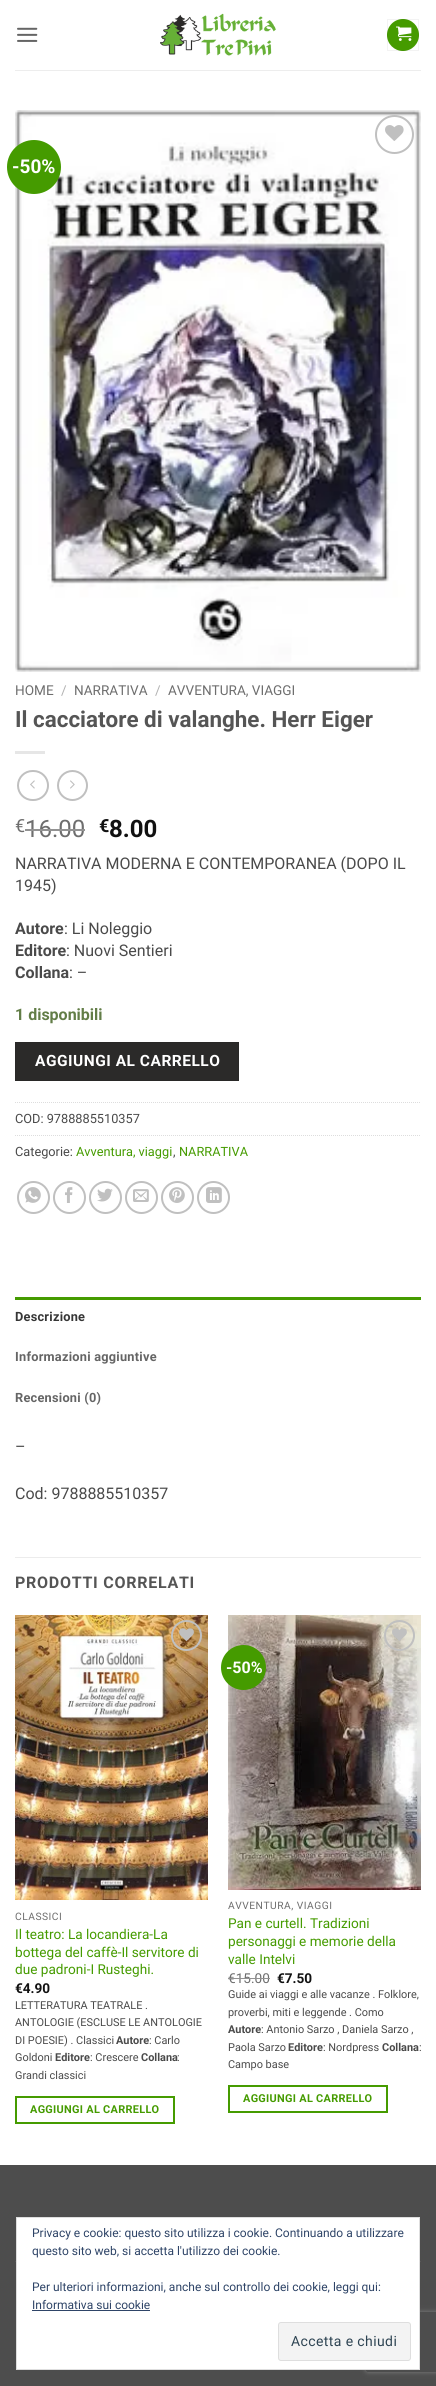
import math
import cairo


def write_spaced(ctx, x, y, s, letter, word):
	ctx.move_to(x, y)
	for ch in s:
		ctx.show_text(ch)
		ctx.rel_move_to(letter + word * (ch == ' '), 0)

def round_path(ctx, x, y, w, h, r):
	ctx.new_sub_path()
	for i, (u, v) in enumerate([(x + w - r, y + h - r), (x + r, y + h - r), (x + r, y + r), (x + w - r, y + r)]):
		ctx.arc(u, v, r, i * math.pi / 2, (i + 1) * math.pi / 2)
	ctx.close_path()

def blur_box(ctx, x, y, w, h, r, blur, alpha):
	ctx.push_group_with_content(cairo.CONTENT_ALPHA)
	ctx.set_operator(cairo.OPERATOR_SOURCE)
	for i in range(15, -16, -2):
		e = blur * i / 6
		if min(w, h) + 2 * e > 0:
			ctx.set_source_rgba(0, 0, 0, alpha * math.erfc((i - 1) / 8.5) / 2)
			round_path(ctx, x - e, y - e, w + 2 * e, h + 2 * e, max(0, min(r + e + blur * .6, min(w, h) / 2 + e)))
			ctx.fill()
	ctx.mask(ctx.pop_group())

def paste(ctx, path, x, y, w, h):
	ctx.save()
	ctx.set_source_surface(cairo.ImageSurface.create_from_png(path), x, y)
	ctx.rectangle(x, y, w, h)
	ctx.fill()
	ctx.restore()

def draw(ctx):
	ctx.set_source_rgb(0.302, 0.302, 0.302)
	ctx.paint()
	ctx.set_source_rgb(1, 1, 1)
	ctx.rectangle(0, 0, 436, 2165)
	ctx.fill()
	paste(ctx, 'media/1.png', 17, 27, 21, 15)
	paste(ctx, 'media/2.png', 160, 13, 116, 43)
	ctx.set_source_rgb(0.271, 0.608, 0)
	ctx.arc(403, 35, 16, 0, 2 * math.pi)
	ctx.fill()
	ctx.rectangle(387.5, 19.5, 31, 31)
	ctx.set_source_rgba(0, 0, 0, 0.05)
	ctx.set_line_width(1)
	ctx.stroke()
	paste(ctx, 'media/3.png', 396, 26, 16, 15)
	ctx.set_source_rgb(0.929, 0.929, 0.929)
	ctx.rectangle(15, 70, 406, 1)
	ctx.fill()
	paste(ctx, 'media/4.png', 15, 110, 406, 562)
	ctx.arc(394.5, 134.5, 18.5, 0, 2 * math.pi)
	ctx.set_source_rgb(0.753, 0.753, 0.753)
	ctx.set_line_width(2)
	ctx.stroke()
	paste(ctx, 'media/5.png', 385, 125, 19, 16)
	ctx.set_source_rgb(0.271, 0.608, 0)
	ctx.arc(34, 167, 27, 0, 2 * math.pi)
	ctx.fill()
	ctx.select_font_face('Roboto', cairo.FONT_SLANT_NORMAL, cairo.FONT_WEIGHT_BOLD)
	ctx.set_font_size(19)
	ctx.set_source_rgb(1, 1, 1)
	ctx.move_to(12, 173)
	ctx.show_text('-50%')
	ctx.select_font_face('Roboto')
	ctx.set_font_size(13.6)
	ctx.set_source_rgb(0.431, 0.431, 0.431)
	ctx.move_to(15, 695)
	ctx.show_text('HOME')
	ctx.set_source_rgb(0.698, 0.698, 0.698)
	ctx.move_to(61, 695)
	ctx.show_text('/')
	ctx.set_source_rgb(0.431, 0.431, 0.431)
	ctx.move_to(74, 695)
	ctx.show_text('NARRATIVA')
	ctx.set_source_rgb(0.698, 0.698, 0.698)
	ctx.move_to(155, 695)
	ctx.show_text('/')
	ctx.set_source_rgb(0.431, 0.431, 0.431)
	ctx.move_to(168, 695)
	ctx.show_text('AVVENTURA, VIAGGI')
	ctx.select_font_face('Roboto', cairo.FONT_SLANT_NORMAL, cairo.FONT_WEIGHT_BOLD)
	ctx.set_font_size(22.4)
	ctx.set_source_rgb(0.333, 0.333, 0.333)
	ctx.move_to(15, 727)
	ctx.show_text('Il cacciatore di valanghe. Herr Eiger')
	ctx.set_source_rgb(0.902, 0.902, 0.902)
	ctx.rectangle(15, 751, 30, 3)
	ctx.fill()
	round_path(ctx, 18, 771, 30, 29, 14.5)
	ctx.set_source_rgb(0.753, 0.753, 0.753)
	ctx.stroke()
	paste(ctx, 'media/6.png', 30, 780, 5, 9)
	ctx.arc(72.5, 785.5, 14.5, 0, 2 * math.pi)
	ctx.stroke()
	paste(ctx, 'media/7.png', 70, 780, 5, 9)
	ctx.select_font_face('Roboto')
	ctx.set_font_size(18)
	ctx.set_source_rgb(0.431, 0.431, 0.431)
	ctx.move_to(15, 832)
	ctx.show_text('€')
	ctx.set_font_size(24)
	ctx.move_to(25, 837)
	ctx.show_text('16.00')
	ctx.set_source_rgb(0.573, 0.573, 0.573)
	ctx.rectangle(25, 829, 60, 2)
	ctx.fill()
	ctx.select_font_face('Roboto', cairo.FONT_SLANT_NORMAL, cairo.FONT_WEIGHT_BOLD)
	ctx.set_font_size(18)
	ctx.set_source_rgb(0.067, 0.067, 0.067)
	ctx.move_to(99, 832)
	ctx.show_text('€')
	ctx.set_font_size(24)
	ctx.move_to(109, 837)
	ctx.show_text('8.00')
	ctx.select_font_face('Roboto')
	ctx.set_font_size(16)
	ctx.set_source_rgb(0.29, 0.29, 0.29)
	ctx.move_to(15, 869)
	ctx.show_text('NARRATIVA MODERNA E CONTEMPORANEA (DOPO IL')
	ctx.move_to(15, 891)
	ctx.show_text('1945)')
	ctx.select_font_face('Roboto', cairo.FONT_SLANT_NORMAL, cairo.FONT_WEIGHT_BOLD)
	ctx.move_to(15, 934)
	ctx.show_text('Autore')
	ctx.select_font_face('Roboto')
	ctx.move_to(64, 934)
	ctx.show_text(': Li Noleggio')
	ctx.select_font_face('Roboto', cairo.FONT_SLANT_NORMAL, cairo.FONT_WEIGHT_BOLD)
	ctx.move_to(15, 956)
	ctx.show_text('Editore')
	ctx.select_font_face('Roboto')
	ctx.move_to(66, 956)
	ctx.show_text(': Nuovi Sentieri')
	ctx.select_font_face('Roboto', cairo.FONT_SLANT_NORMAL, cairo.FONT_WEIGHT_BOLD)
	ctx.move_to(15, 978)
	ctx.show_text('Collana')
	ctx.select_font_face('Roboto')
	ctx.move_to(69, 978)
	ctx.show_text(': –')
	ctx.select_font_face('Roboto', cairo.FONT_SLANT_NORMAL, cairo.FONT_WEIGHT_BOLD)
	ctx.set_source_rgb(0.384, 0.49, 0.278)
	ctx.move_to(15, 1020)
	ctx.show_text('1 disponibili')
	ctx.set_source_rgb(0.169, 0.165, 0.161)
	ctx.rectangle(15.5, 1042.5, 223, 38)
	ctx.fill_preserve()
	ctx.set_source_rgb(0.161, 0.157, 0.153)
	ctx.set_line_width(1)
	ctx.stroke()
	ctx.set_font_size(15.5)
	ctx.set_source_rgb(1, 1, 1)
	write_spaced(ctx, 35, 1066, 'AGGIUNGI AL CARRELLO', 0.5, 0)
	ctx.new_path()
	ctx.move_to(15, 1102.5)
	ctx.line_to(421, 1102.5)
	ctx.set_source_rgb(0.867, 0.867, 0.867)
	ctx.set_dash([1, 1])
	ctx.stroke()
	ctx.select_font_face('Roboto')
	ctx.set_font_size(12.75)
	ctx.set_source_rgb(0.29, 0.29, 0.29)
	ctx.move_to(15, 1123)
	ctx.show_text('COD: 9788885510357')
	ctx.new_path()
	ctx.move_to(15, 1135.5)
	ctx.line_to(421, 1135.5)
	ctx.set_source_rgb(0.867, 0.867, 0.867)
	ctx.stroke()
	ctx.set_source_rgb(0.29, 0.29, 0.29)
	ctx.move_to(15, 1156)
	ctx.show_text('Categorie:')
	ctx.set_source_rgb(0.271, 0.608, 0)
	ctx.move_to(76, 1156)
	ctx.show_text('Avventura, viaggi')
	ctx.set_source_rgb(0.29, 0.29, 0.29)
	ctx.move_to(173, 1156)
	ctx.show_text(',')
	ctx.set_source_rgb(0.271, 0.608, 0)
	ctx.move_to(179, 1156)
	ctx.show_text('NARRATIVA')
	ctx.new_path()
	ctx.arc(33.5, 1197.5, 15.5, 0, 2 * math.pi)
	ctx.set_source_rgb(0.753, 0.753, 0.753)
	ctx.set_line_width(2)
	ctx.set_dash([])
	ctx.stroke()
	paste(ctx, 'media/8.png', 25, 1187, 16, 16)
	ctx.arc(69.5, 1197.5, 15.5, 0, 2 * math.pi)
	ctx.stroke()
	paste(ctx, 'media/9.png', 65, 1187, 8, 16)
	ctx.arc(105.5, 1197.5, 15.5, 0, 2 * math.pi)
	ctx.stroke()
	paste(ctx, 'media/10.png', 97, 1188, 16, 14)
	ctx.arc(141.5, 1197.5, 15.5, 0, 2 * math.pi)
	ctx.stroke()
	paste(ctx, 'media/11.png', 133, 1189, 16, 13)
	ctx.arc(177.5, 1197.5, 15.5, 0, 2 * math.pi)
	ctx.stroke()
	paste(ctx, 'media/12.png', 169, 1187, 16, 16)
	ctx.arc(213.5, 1197.5, 15.5, 0, 2 * math.pi)
	ctx.stroke()
	paste(ctx, 'media/13.png', 206, 1187, 16, 16)
	ctx.set_source_rgb(0.271, 0.608, 0)
	ctx.rectangle(15, 1297, 406, 3)
	ctx.fill()
	ctx.select_font_face('Roboto', cairo.FONT_SLANT_NORMAL, cairo.FONT_WEIGHT_BOLD)
	ctx.set_source_rgb(0.212, 0.212, 0.212)
	write_spaced(ctx, 15, 1321, 'Descrizione', 0.25, 0)
	ctx.set_source_rgb(0.396, 0.396, 0.396)
	write_spaced(ctx, 15, 1361, 'Informazioni aggiuntive', 0.25, 0)
	write_spaced(ctx, 15, 1402, 'Recensioni (0)', 0.25, 0)
	ctx.select_font_face('Roboto')
	ctx.set_font_size(16)
	ctx.set_source_rgb(0.29, 0.29, 0.29)
	ctx.move_to(15, 1452)
	ctx.show_text('–')
	ctx.move_to(15, 1499)
	ctx.show_text('Cod: 9788885510357')
	ctx.set_source_rgb(0.925, 0.925, 0.925)
	ctx.rectangle(15, 1557, 406, 1)
	ctx.fill()
	ctx.select_font_face('Roboto', cairo.FONT_SLANT_NORMAL, cairo.FONT_WEIGHT_BOLD)
	ctx.set_source_rgb(0.333, 0.333, 0.333)
	write_spaced(ctx, 15, 1588, 'PRODOTTI CORRELATI', 0.75, 0)
	paste(ctx, 'media/14.png', 15, 1615, 193, 285)
	ctx.arc(186.5, 1635.5, 14.5, 0, 2 * math.pi)
	ctx.set_source_rgb(0.753, 0.753, 0.753)
	ctx.stroke()
	paste(ctx, 'media/15.png', 179, 1628, 15, 13)
	ctx.select_font_face('Roboto')
	ctx.set_font_size(10.25)
	ctx.set_source_rgb(0.431, 0.431, 0.431)
	write_spaced(ctx, 15, 1920, 'CLASSICI', 0.5, 0)
	ctx.set_font_size(13.6)
	ctx.set_source_rgb(0.271, 0.608, 0)
	for x, y, s in [
		(15, 1939, 'Il teatro: La locandiera-La'),
		(15, 1957, 'bottega del caffè-Il servitore di'),
		(15, 1974, 'due padroni-I Rusteghi.'),
	]:
		ctx.move_to(x, y)
		ctx.show_text(s)
	ctx.select_font_face('Roboto', cairo.FONT_SLANT_NORMAL, cairo.FONT_WEIGHT_BOLD)
	ctx.set_source_rgb(0.067, 0.067, 0.067)
	ctx.move_to(15, 1993)
	ctx.show_text('€4.90')
	ctx.select_font_face('Roboto')
	ctx.set_font_size(10.9)
	ctx.set_source_rgb(0.29, 0.29, 0.29)
	for x, y, s in [
		(15, 2009, 'LETTERATURA TEATRALE .'),
		(15, 2026, 'ANTOLOGIE (ESCLUSE LE ANTOLOGIE'),
		(15, 2044, 'DI POESIE) . Classici'),
	]:
		ctx.move_to(x, y)
		ctx.show_text(s)
	ctx.select_font_face('Roboto', cairo.FONT_SLANT_NORMAL, cairo.FONT_WEIGHT_BOLD)
	ctx.move_to(116, 2044)
	ctx.show_text('Autore')
	ctx.select_font_face('Roboto')
	ctx.move_to(149, 2044)
	ctx.show_text(': Carlo')
	ctx.move_to(15, 2061)
	ctx.show_text('Goldoni')
	ctx.select_font_face('Roboto', cairo.FONT_SLANT_NORMAL, cairo.FONT_WEIGHT_BOLD)
	ctx.move_to(55, 2061)
	ctx.show_text('Editore')
	ctx.select_font_face('Roboto')
	ctx.move_to(90, 2061)
	ctx.show_text(': Crescere')
	ctx.select_font_face('Roboto', cairo.FONT_SLANT_NORMAL, cairo.FONT_WEIGHT_BOLD)
	ctx.move_to(141, 2061)
	ctx.show_text('Collana')
	ctx.select_font_face('Roboto')
	ctx.move_to(177, 2061)
	ctx.show_text(':')
	ctx.move_to(15, 2079)
	ctx.show_text('Grandi classici')
	ctx.rectangle(16, 2097, 158, 26)
	ctx.set_source_rgb(0.271, 0.608, 0)
	ctx.stroke()
	ctx.select_font_face('Roboto', cairo.FONT_SLANT_NORMAL, cairo.FONT_WEIGHT_BOLD)
	write_spaced(ctx, 30, 2113, 'AGGIUNGI AL CARRELLO', 0.3, 0)
	paste(ctx, 'media/16.png', 228, 1615, 193, 275)
	ctx.arc(243.5, 1667.5, 22.5, 0, 2 * math.pi)
	ctx.fill()
	ctx.set_font_size(16)
	ctx.set_source_rgb(1, 1, 1)
	ctx.move_to(226, 1673)
	ctx.show_text('-50%')
	ctx.new_path()
	ctx.arc(399.5, 1635.5, 14.5, 0, 2 * math.pi)
	ctx.set_source_rgb(0.753, 0.753, 0.753)
	ctx.stroke()
	paste(ctx, 'media/17.png', 392, 1628, 15, 13)
	ctx.select_font_face('Roboto')
	ctx.set_font_size(10.25)
	ctx.set_source_rgb(0.431, 0.431, 0.431)
	write_spaced(ctx, 228, 1909, 'AVVENTURA, VIAGGI', 0.5, 0)
	ctx.set_font_size(13.6)
	ctx.set_source_rgb(0.271, 0.608, 0)
	for x, y, s in [
		(228, 1928, 'Pan e curtell. Tradizioni'),
		(228, 1946, 'personaggi e memorie della'),
		(228, 1964, 'valle Intelvi'),
	]:
		ctx.move_to(x, y)
		ctx.show_text(s)
	ctx.set_source_rgb(0.431, 0.431, 0.431)
	ctx.move_to(228, 1983)
	ctx.show_text('€15.00')
	ctx.set_source_rgb(0.573, 0.573, 0.573)
	ctx.rectangle(228, 1978, 42, 1)
	ctx.fill()
	ctx.select_font_face('Roboto', cairo.FONT_SLANT_NORMAL, cairo.FONT_WEIGHT_BOLD)
	ctx.set_source_rgb(0.067, 0.067, 0.067)
	ctx.move_to(277, 1983)
	ctx.show_text('€7.50')
	ctx.select_font_face('Roboto')
	ctx.set_font_size(10.9)
	ctx.set_source_rgb(0.29, 0.29, 0.29)
	ctx.move_to(228, 1998)
	ctx.show_text('Guide ai viaggi e alle vacanze . Folklore,')
	ctx.move_to(228, 2016)
	ctx.show_text('proverbi, miti e leggende . Como')
	ctx.select_font_face('Roboto', cairo.FONT_SLANT_NORMAL, cairo.FONT_WEIGHT_BOLD)
	ctx.move_to(228, 2033)
	ctx.show_text('Autore')
	ctx.select_font_face('Roboto')
	ctx.move_to(261, 2033)
	ctx.show_text(': Antonio Sarzo , Daniela Sarzo ,')
	ctx.move_to(228, 2051)
	ctx.show_text('Paola Sarzo')
	ctx.select_font_face('Roboto', cairo.FONT_SLANT_NORMAL, cairo.FONT_WEIGHT_BOLD)
	ctx.move_to(288, 2051)
	ctx.show_text('Editore')
	ctx.select_font_face('Roboto')
	ctx.move_to(323, 2051)
	ctx.show_text(': Nordpress')
	ctx.select_font_face('Roboto', cairo.FONT_SLANT_NORMAL, cairo.FONT_WEIGHT_BOLD)
	ctx.move_to(382, 2051)
	ctx.show_text('Collana')
	ctx.select_font_face('Roboto')
	ctx.move_to(419, 2051)
	ctx.show_text(':')
	ctx.move_to(228, 2068)
	ctx.show_text('Campo base')
	ctx.rectangle(229, 2086, 158, 26)
	ctx.set_source_rgb(0.271, 0.608, 0)
	ctx.stroke()
	ctx.select_font_face('Roboto', cairo.FONT_SLANT_NORMAL, cairo.FONT_WEIGHT_BOLD)
	write_spaced(ctx, 243, 2102, 'AGGIUNGI AL CARRELLO', 0.3, 0)
	ctx.set_source_rgb(0.345, 0.345, 0.345)
	ctx.rectangle(15, 2261, 406, 1)
	ctx.fill()
	ctx.save()
	ctx.set_fill_rule(cairo.FILL_RULE_EVEN_ODD)
	ctx.new_path()
	ctx.move_to(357, 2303)
	ctx.line_to(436, 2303)
	ctx.line_to(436, 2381)
	ctx.line_to(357, 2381)
	ctx.close_path()
	ctx.move_to(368, 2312)
	ctx.line_to(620, 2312)
	ctx.curve_to(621, 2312, 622, 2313, 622, 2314)
	ctx.line_to(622, 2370)
	ctx.curve_to(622, 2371, 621, 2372, 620, 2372)
	ctx.line_to(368, 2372)
	ctx.curve_to(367, 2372, 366, 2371, 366, 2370)
	ctx.line_to(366, 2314)
	ctx.curve_to(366, 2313, 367, 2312, 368, 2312)
	ctx.close_path()
	ctx.clip()
	ctx.set_source_rgb(0.502, 0.502, 0.502)
	blur_box(ctx, 366, 2312, 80, 60, 2, 2.5, 1)
	ctx.restore()
	ctx.set_source_rgb(1, 1, 1)
	ctx.rectangle(16.5, 2217.5, 403, 152)
	ctx.fill_preserve()
	ctx.set_source_rgb(0.871, 0.871, 0.871)
	ctx.set_line_width(1)
	ctx.stroke()
	ctx.select_font_face('Roboto')
	ctx.set_font_size(12)
	ctx.set_source_rgb(0.18, 0.267, 0.404)
	for x, y, s in [
		(32, 2237, 'Privacy e cookie: questo sito utilizza i cookie. Continuando a utilizzare'),
		(32, 2255, 'questo sito web, si accetta l\'utilizzo dei cookie.'),
		(32, 2291, 'Per ulteriori informazioni, anche sul controllo dei cookie, leggi qui:'),
		(32, 2309, 'Informativa sui cookie'),
	]:
		ctx.move_to(x, y)
		ctx.show_text(s)
	ctx.rectangle(32, 2310, 118, 1)
	ctx.fill()
	ctx.set_source_rgb(0.953, 0.953, 0.953)
	round_path(ctx, 278.5, 2322.5, 132, 38, 2.5)
	ctx.fill_preserve()
	ctx.set_source_rgb(0.871, 0.871, 0.871)
	ctx.stroke()
	ctx.set_font_size(14)
	ctx.set_source_rgb(0.18, 0.267, 0.325)
	write_spaced(ctx, 291, 2346, 'Accetta e chiudi', 0.4, 0)


surface = cairo.ImageSurface(cairo.FORMAT_RGB24, 436, 2386)
ctx = cairo.Context(surface)
options = cairo.FontOptions()
options.set_hint_metrics(cairo.HINT_METRICS_OFF)
options.set_hint_style(cairo.HINT_STYLE_NONE)
ctx.set_font_options(options)
ctx.set_miter_limit(4)
draw(ctx)
surface.write_to_png('image.png')
